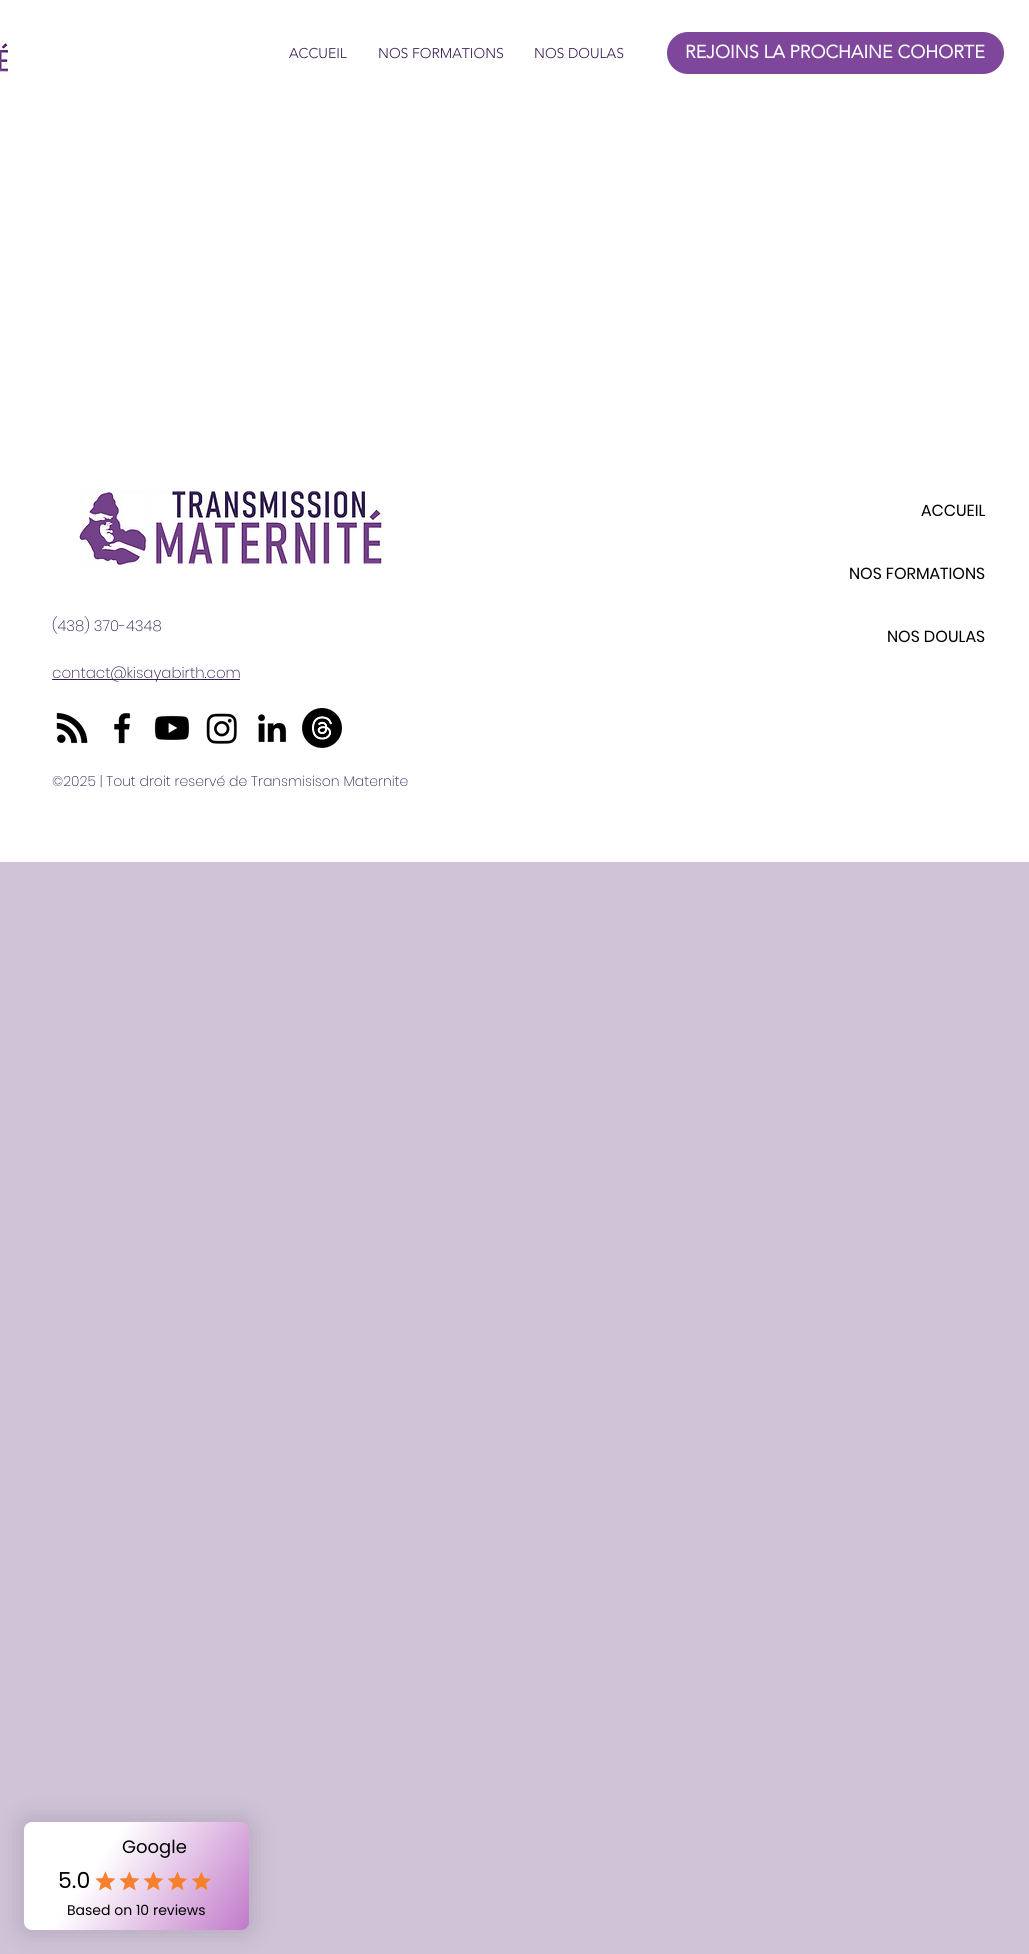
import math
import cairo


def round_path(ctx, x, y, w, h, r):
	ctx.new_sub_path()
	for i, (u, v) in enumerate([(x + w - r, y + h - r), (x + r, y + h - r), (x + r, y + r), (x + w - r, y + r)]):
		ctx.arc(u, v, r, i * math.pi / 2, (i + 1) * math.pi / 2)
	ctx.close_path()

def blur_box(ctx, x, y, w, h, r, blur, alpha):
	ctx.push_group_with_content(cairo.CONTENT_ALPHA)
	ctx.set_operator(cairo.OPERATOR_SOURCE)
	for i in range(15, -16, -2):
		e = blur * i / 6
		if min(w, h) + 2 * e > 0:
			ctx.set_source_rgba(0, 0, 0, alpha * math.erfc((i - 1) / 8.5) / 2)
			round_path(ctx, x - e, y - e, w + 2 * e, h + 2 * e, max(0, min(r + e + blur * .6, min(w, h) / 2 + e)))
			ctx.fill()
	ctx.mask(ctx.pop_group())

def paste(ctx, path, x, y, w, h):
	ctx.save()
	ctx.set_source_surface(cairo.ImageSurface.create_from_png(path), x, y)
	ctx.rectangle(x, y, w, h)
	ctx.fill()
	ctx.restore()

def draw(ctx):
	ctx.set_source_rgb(0.816, 0.765, 0.847)
	ctx.paint()
	ctx.set_source_rgb(1, 1, 1)
	ctx.rectangle(0, 0, 1029, 862)
	ctx.fill()
	paste(ctx, 'media/1.png', 0, 43, 8, 29)
	ctx.select_font_face('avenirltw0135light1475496 Light')
	ctx.set_font_size(14)
	ctx.set_source_rgb(0.204, 0.106, 0.318)
	for x, y, s in [
		(289, 58, 'ACCUEIL'),
		(378, 58, 'NOS FORMATIONS'),
		(534, 58, 'NOS DOULAS'),
	]:
		ctx.move_to(x, y)
		ctx.show_text(s)
	ctx.set_source_rgb(0.494, 0.278, 0.608)
	round_path(ctx, 667, 32, 337, 42, 21)
	ctx.fill()
	ctx.select_font_face('avenirltw0135light1475496', cairo.FONT_SLANT_NORMAL, cairo.FONT_WEIGHT_BOLD)
	ctx.set_font_size(18)
	ctx.set_source_rgb(1, 1, 1)
	ctx.move_to(685, 58)
	ctx.show_text('REJOINS LA PROCHAINE COHORTE')
	ctx.select_font_face('Poppins')
	ctx.set_font_size(16)
	ctx.set_source_rgb(0, 0, 0)
	for x, y, s in [
		(921, 516, 'ACCUEIL'),
		(849, 579, 'NOS FORMATIONS'),
		(887, 642, 'NOS DOULAS'),
	]:
		ctx.move_to(x, y)
		ctx.show_text(s)
	paste(ctx, 'media/2.png', 79, 490, 305, 76)
	ctx.select_font_face('Poppins ExtraLight')
	ctx.set_font_size(15)
	ctx.set_source_rgb(0.204, 0.106, 0.318)
	ctx.move_to(52, 631)
	ctx.show_text('(438) 370-4348')
	ctx.rectangle(52, 679, 188, 1)
	ctx.fill()
	ctx.move_to(52, 678)
	ctx.show_text('contact@kisayabirth.com')
	paste(ctx, 'media/3.png', 56, 712, 32, 32)
	paste(ctx, 'media/4.png', 114, 713, 17, 31)
	paste(ctx, 'media/5.png', 154, 715, 36, 25)
	paste(ctx, 'media/6.png', 206, 713, 31, 31)
	paste(ctx, 'media/7.png', 258, 714, 29, 29)
	paste(ctx, 'media/8.png', 302, 708, 40, 40)
	ctx.set_font_size(14)
	ctx.move_to(52, 786)
	ctx.show_text('©2025 | Tout droit reservé de Transmisison Maternite')
	ctx.set_source_rgb(0, 0, 0)
	blur_box(ctx, 18, 1816, 237, 120, 12, 12, 0.12)
	gradient = cairo.LinearGradient(36, 1805, 238, 1947)
	gradient.add_color_stop_rgba(0.34, 1, 1, 1, 1)
	gradient.add_color_stop_rgba(1, 0.757, 0.475, 0.788, 1)
	ctx.set_source(gradient)
	round_path(ctx, 24, 1822, 225, 108, 8)
	ctx.fill()
	ctx.select_font_face('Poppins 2')
	ctx.set_font_size(18)
	ctx.set_source_rgb(0, 0, 0)
	ctx.move_to(122, 1853)
	ctx.show_text('Google')
	ctx.set_font_size(22)
	ctx.move_to(58, 1888)
	ctx.show_text('5.0')
	paste(ctx, 'media/9.png', 95, 1871, 20, 19)
	paste(ctx, 'media/10.png', 95, 1871, 21, 20)
	paste(ctx, 'media/11.png', 119, 1871, 20, 19)
	paste(ctx, 'media/12.png', 119, 1871, 21, 20)
	paste(ctx, 'media/14.png', 144, 1872, 19, 18)
	paste(ctx, 'media/13.png', 143, 1871, 21, 20)
	paste(ctx, 'media/16.png', 168, 1872, 19, 18)
	paste(ctx, 'media/15.png', 167, 1871, 21, 20)
	paste(ctx, 'media/17.png', 191, 1871, 20, 20)
	paste(ctx, 'media/18.png', 191, 1871, 21, 20)
	ctx.set_font_size(14)
	ctx.move_to(67, 1915)
	ctx.show_text('Based on 10 reviews')


surface = cairo.ImageSurface(cairo.FORMAT_RGB24, 1029, 1954)
ctx = cairo.Context(surface)
options = cairo.FontOptions()
options.set_hint_metrics(cairo.HINT_METRICS_OFF)
options.set_hint_style(cairo.HINT_STYLE_NONE)
ctx.set_font_options(options)
ctx.set_miter_limit(4)
draw(ctx)
surface.write_to_png('image.png')
